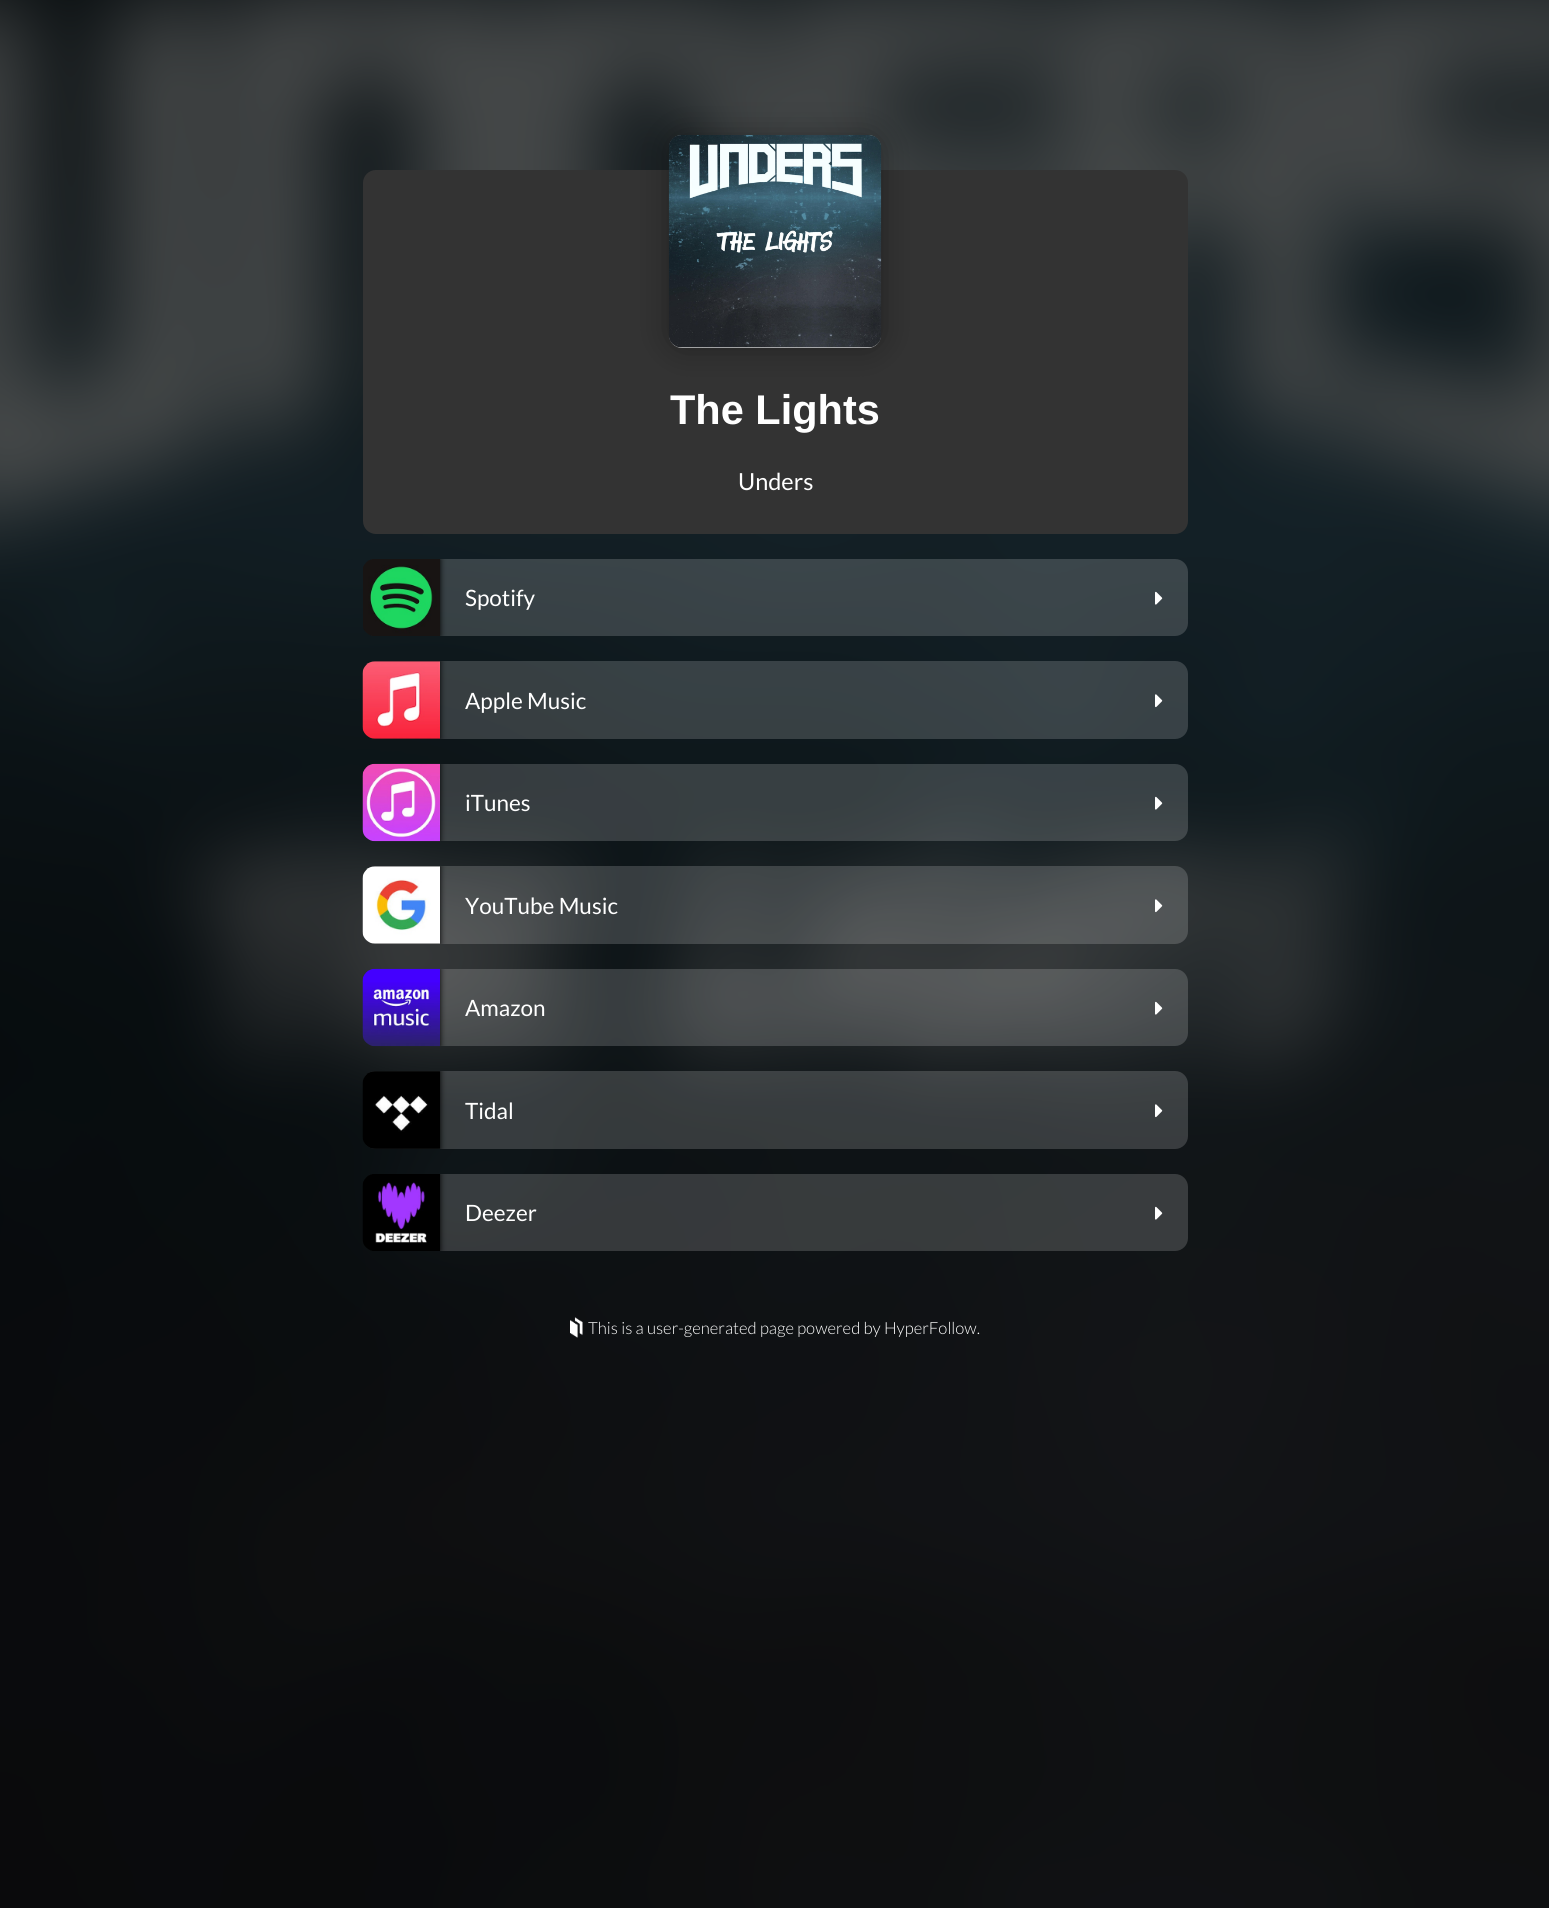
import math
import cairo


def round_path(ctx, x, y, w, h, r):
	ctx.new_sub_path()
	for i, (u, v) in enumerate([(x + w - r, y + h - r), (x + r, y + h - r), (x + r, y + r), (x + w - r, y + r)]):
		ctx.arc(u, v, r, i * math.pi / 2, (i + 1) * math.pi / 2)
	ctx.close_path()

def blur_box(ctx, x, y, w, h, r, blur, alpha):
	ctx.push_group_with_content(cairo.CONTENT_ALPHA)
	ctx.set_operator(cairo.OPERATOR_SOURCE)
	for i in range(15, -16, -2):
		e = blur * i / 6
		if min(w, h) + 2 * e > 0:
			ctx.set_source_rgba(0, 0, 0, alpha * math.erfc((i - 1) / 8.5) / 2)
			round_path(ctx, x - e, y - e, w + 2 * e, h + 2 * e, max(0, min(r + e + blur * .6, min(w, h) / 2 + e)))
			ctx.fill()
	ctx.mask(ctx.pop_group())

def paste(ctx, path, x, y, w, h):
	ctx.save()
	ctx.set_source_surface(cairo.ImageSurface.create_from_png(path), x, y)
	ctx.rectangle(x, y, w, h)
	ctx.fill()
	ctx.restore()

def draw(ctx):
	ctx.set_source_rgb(0, 0, 0)
	ctx.paint()
	paste(ctx, 'media/1.png', 0, 0, 1549, 1908)
	ctx.set_source_rgb(0.2, 0.2, 0.2)
	round_path(ctx, 363, 170, 825, 364, 13)
	ctx.fill()
	ctx.set_source_rgb(0, 0, 0)
	blur_box(ctx, 669, 135, 212, 213, 13, 15.5, 0.35)
	ctx.set_source_rgb(0.8, 0.8, 0.8)
	round_path(ctx, 669, 135, 212, 213, 13)
	ctx.fill()
	paste(ctx, 'media/2.png', 668, 135, 214, 213)
	ctx.select_font_face('Liberation Sans', cairo.FONT_SLANT_NORMAL, cairo.FONT_WEIGHT_BOLD)
	ctx.set_font_size(41.5)
	ctx.set_source_rgb(1, 1, 1)
	ctx.move_to(670, 424)
	ctx.show_text('The Lights')
	ctx.select_font_face('Lato')
	ctx.set_font_size(23.5)
	ctx.move_to(738, 490)
	ctx.show_text('Unders')
	ctx.set_source_rgba(1, 1, 1, 0.17)
	round_path(ctx, 363, 559, 825, 77, 13)
	ctx.fill()
	ctx.save()
	round_path(ctx, 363, 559, 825, 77, 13)
	ctx.clip()
	ctx.set_source_rgb(0, 0, 0)
	blur_box(ctx, 363, 559, 77, 77, 0, 3, 1)
	ctx.restore()
	paste(ctx, 'media/3.png', 363, 559, 77, 77)
	ctx.set_font_size(22.5)
	ctx.set_source_rgb(1, 1, 1)
	ctx.move_to(465, 606)
	ctx.show_text('Spotify')
	paste(ctx, 'media/4.png', 1155, 591, 8, 14)
	ctx.set_source_rgba(1, 1, 1, 0.17)
	round_path(ctx, 363, 661, 825, 78, 13)
	ctx.fill()
	ctx.save()
	round_path(ctx, 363, 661, 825, 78, 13)
	ctx.clip()
	ctx.set_source_rgb(0, 0, 0)
	blur_box(ctx, 363, 661, 77, 78, 0, 3, 1)
	ctx.restore()
	paste(ctx, 'media/5.png', 362, 661, 78, 78)
	ctx.set_source_rgb(1, 1, 1)
	ctx.move_to(465, 709)
	ctx.show_text('Apple Music')
	paste(ctx, 'media/6.png', 1155, 694, 8, 14)
	ctx.set_source_rgba(1, 1, 1, 0.17)
	round_path(ctx, 363, 764, 825, 77, 13)
	ctx.fill()
	ctx.save()
	round_path(ctx, 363, 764, 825, 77, 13)
	ctx.clip()
	ctx.set_source_rgb(0, 0, 0)
	blur_box(ctx, 363, 764, 77, 77, 0, 3, 1)
	ctx.restore()
	paste(ctx, 'media/7.png', 362, 763, 78, 79)
	ctx.set_source_rgb(1, 1, 1)
	ctx.move_to(465, 811)
	ctx.show_text('iTunes')
	paste(ctx, 'media/8.png', 1155, 796, 8, 14)
	ctx.set_source_rgba(1, 1, 1, 0.17)
	round_path(ctx, 363, 866, 825, 78, 13)
	ctx.fill()
	ctx.save()
	round_path(ctx, 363, 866, 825, 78, 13)
	ctx.clip()
	ctx.set_source_rgb(0, 0, 0)
	blur_box(ctx, 363, 866, 77, 78, 0, 3, 1)
	ctx.restore()
	paste(ctx, 'media/9.png', 362, 866, 78, 78)
	ctx.set_source_rgb(1, 1, 1)
	ctx.move_to(465, 914)
	ctx.show_text('YouTube Music')
	paste(ctx, 'media/10.png', 1155, 899, 8, 14)
	ctx.set_source_rgba(1, 1, 1, 0.17)
	round_path(ctx, 363, 969, 825, 77, 13)
	ctx.fill()
	ctx.save()
	round_path(ctx, 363, 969, 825, 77, 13)
	ctx.clip()
	ctx.set_source_rgb(0, 0, 0)
	blur_box(ctx, 363, 969, 77, 77, 0, 3, 1)
	ctx.restore()
	paste(ctx, 'media/11.png', 362, 968, 78, 79)
	ctx.set_source_rgb(1, 1, 1)
	ctx.move_to(465, 1016)
	ctx.show_text('Amazon')
	paste(ctx, 'media/12.png', 1155, 1001, 8, 14)
	ctx.set_source_rgba(1, 1, 1, 0.17)
	round_path(ctx, 363, 1071, 825, 78, 13)
	ctx.fill()
	ctx.save()
	round_path(ctx, 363, 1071, 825, 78, 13)
	ctx.clip()
	ctx.set_source_rgb(0, 0, 0)
	blur_box(ctx, 363, 1071, 77, 78, 0, 3, 1)
	ctx.restore()
	paste(ctx, 'media/13.png', 362, 1071, 78, 78)
	ctx.set_source_rgb(1, 1, 1)
	ctx.move_to(465, 1119)
	ctx.show_text('Tidal')
	paste(ctx, 'media/14.png', 1155, 1104, 8, 14)
	ctx.set_source_rgba(1, 1, 1, 0.17)
	round_path(ctx, 363, 1174, 825, 77, 13)
	ctx.fill()
	ctx.save()
	round_path(ctx, 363, 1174, 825, 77, 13)
	ctx.clip()
	ctx.set_source_rgb(0, 0, 0)
	blur_box(ctx, 363, 1174, 77, 77, 0, 3, 1)
	ctx.restore()
	paste(ctx, 'media/15.png', 362, 1174, 78, 77)
	ctx.set_source_rgb(1, 1, 1)
	ctx.move_to(465, 1221)
	ctx.show_text('Deezer')
	paste(ctx, 'media/16.png', 1155, 1206, 8, 14)
	paste(ctx, 'media/17.png', 570, 1317, 13, 21)
	ctx.select_font_face('Lato Light')
	ctx.set_font_size(16.7)
	ctx.move_to(588, 1334)
	ctx.show_text('This is a user-generated page powered by HyperFollow.')


surface = cairo.ImageSurface(cairo.FORMAT_RGB24, 1549, 1908)
ctx = cairo.Context(surface)
options = cairo.FontOptions()
options.set_hint_metrics(cairo.HINT_METRICS_OFF)
options.set_hint_style(cairo.HINT_STYLE_NONE)
ctx.set_font_options(options)
ctx.set_miter_limit(4)
draw(ctx)
surface.write_to_png('image.png')
